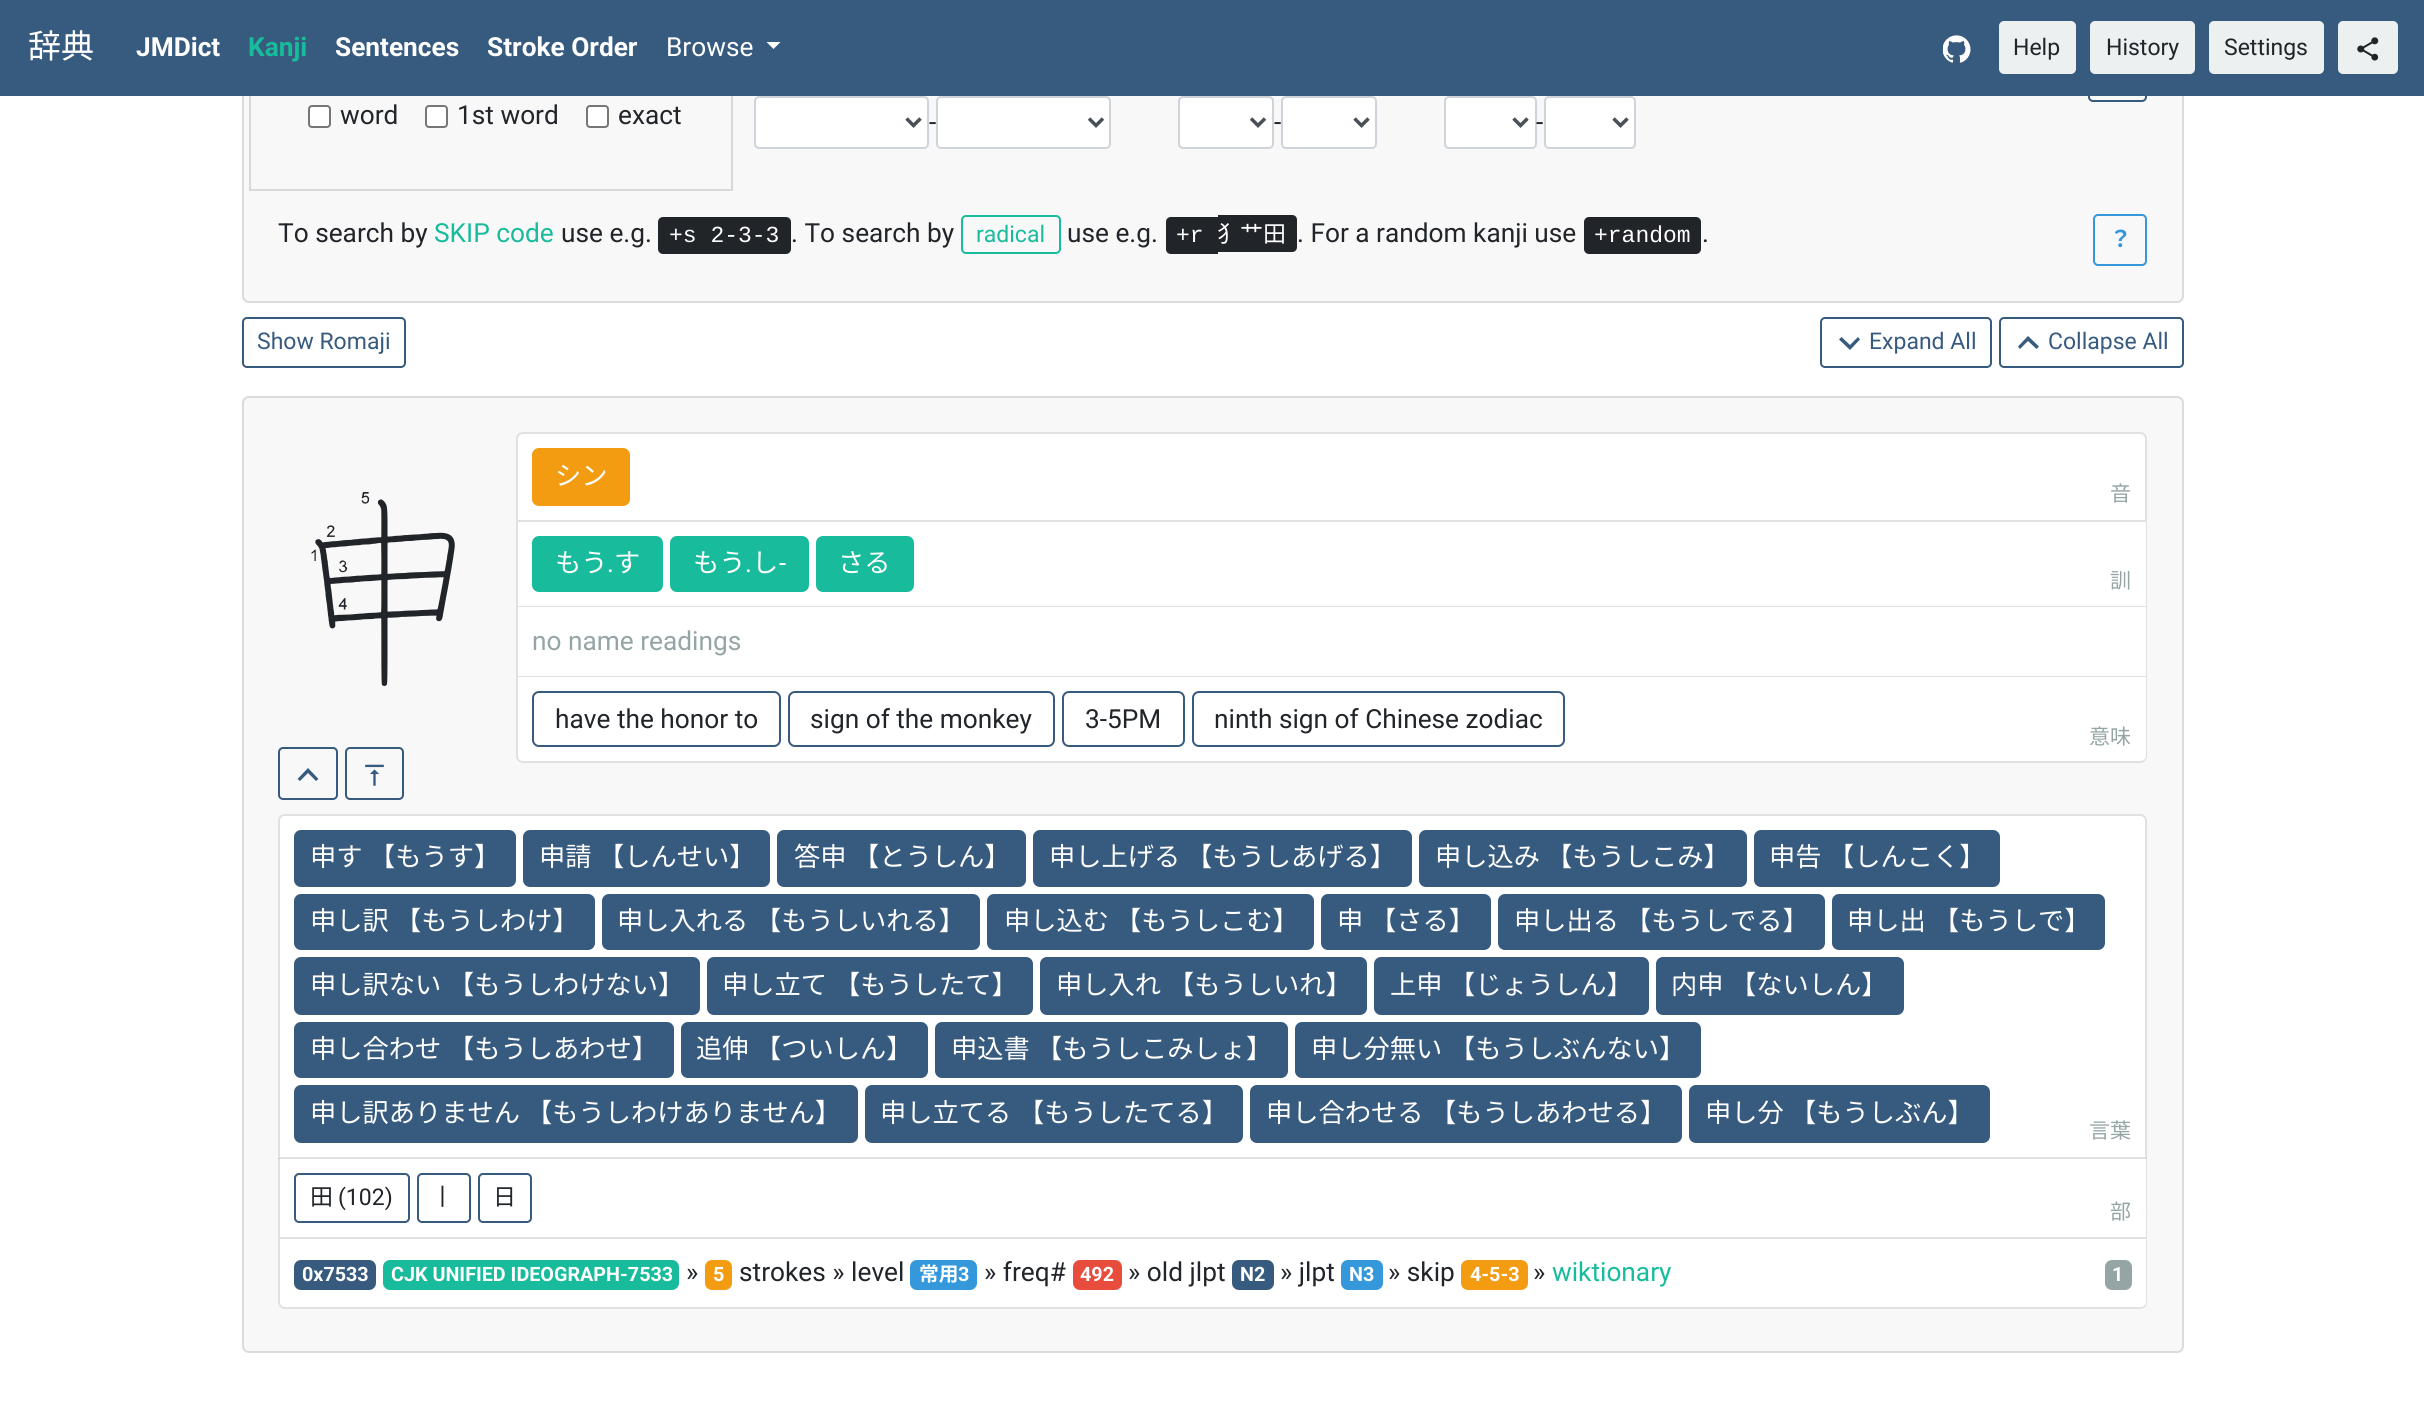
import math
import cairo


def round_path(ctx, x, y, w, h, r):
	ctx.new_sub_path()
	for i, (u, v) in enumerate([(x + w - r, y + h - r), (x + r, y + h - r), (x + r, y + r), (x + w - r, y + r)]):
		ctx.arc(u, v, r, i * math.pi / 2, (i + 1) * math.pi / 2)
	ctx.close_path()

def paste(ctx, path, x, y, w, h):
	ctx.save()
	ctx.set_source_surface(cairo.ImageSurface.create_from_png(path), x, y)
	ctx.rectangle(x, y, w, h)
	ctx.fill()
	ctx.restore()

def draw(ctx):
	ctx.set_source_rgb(1, 1, 1)
	ctx.paint()
	ctx.set_source_rgb(0.969, 0.969, 0.969)
	round_path(ctx, 242, -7, 1942, 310, 7)
	ctx.fill()
	round_path(ctx, 243, -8, 1940, 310, 6)
	ctx.set_source_rgba(0, 0, 0, 0.12)
	ctx.stroke()
	round_path(ctx, 2089, 52, 57, 49, 4)
	ctx.set_source_rgb(0.216, 0.353, 0.498)
	ctx.stroke()
	ctx.rectangle(250, 29, 482, 161)
	ctx.set_source_rgb(0.847, 0.847, 0.847)
	ctx.stroke()
	ctx.set_source_rgb(0.216, 0.353, 0.498)
	ctx.rectangle(0, 0, 2424, 96)
	ctx.fill()
	ctx.select_font_face('Noto Sans CJK JP')
	ctx.set_font_size(33)
	ctx.set_source_rgb(1, 1, 1)
	ctx.move_to(28, 58)
	ctx.show_text('辞典')
	ctx.select_font_face('Roboto', cairo.FONT_SLANT_NORMAL, cairo.FONT_WEIGHT_BOLD)
	ctx.set_font_size(26.25)
	ctx.move_to(136, 56)
	ctx.show_text('JMDict')
	ctx.set_source_rgb(0.094, 0.737, 0.612)
	ctx.move_to(248, 56)
	ctx.show_text('Kanji')
	ctx.set_source_rgb(1, 1, 1)
	ctx.move_to(335, 56)
	ctx.show_text('Sentences')
	ctx.move_to(487, 56)
	ctx.show_text('Stroke Order')
	ctx.select_font_face('Roboto')
	ctx.move_to(666, 56)
	ctx.show_text('Browse')
	ctx.new_path()
	ctx.move_to(766.5, 42)
	ctx.line_to(780.5, 42)
	ctx.line_to(773.5, 49)
	ctx.close_path()
	ctx.fill()
	paste(ctx, 'media/1.png', 1943, 35, 28, 28)
	ctx.set_source_rgb(0.925, 0.941, 0.945)
	round_path(ctx, 2000, 22, 75, 51, 4)
	ctx.fill_preserve()
	ctx.stroke()
	ctx.set_font_size(23)
	ctx.set_source_rgb(0.129, 0.145, 0.161)
	ctx.move_to(2013, 55)
	ctx.show_text('Help')
	ctx.set_source_rgb(0.925, 0.941, 0.945)
	round_path(ctx, 2091, 22, 103, 51, 4)
	ctx.fill_preserve()
	ctx.stroke()
	ctx.set_source_rgb(0.129, 0.145, 0.161)
	ctx.move_to(2106, 55)
	ctx.show_text('History')
	ctx.set_source_rgb(0.925, 0.941, 0.945)
	round_path(ctx, 2210, 22, 113, 51, 4)
	ctx.fill_preserve()
	ctx.stroke()
	ctx.set_source_rgb(0.129, 0.145, 0.161)
	ctx.move_to(2224, 55)
	ctx.show_text('Settings')
	ctx.set_source_rgb(0.925, 0.941, 0.945)
	round_path(ctx, 2339, 22, 58, 51, 4)
	ctx.fill_preserve()
	ctx.stroke()
	paste(ctx, 'media/2.png', 2357, 37, 22, 24)
	ctx.set_source_rgb(1, 1, 1)
	round_path(ctx, 309, 106, 21, 21, 3)
	ctx.fill_preserve()
	ctx.set_source_rgb(0.463, 0.463, 0.463)
	ctx.stroke()
	ctx.set_font_size(26.25)
	ctx.set_source_rgb(0.129, 0.145, 0.161)
	ctx.move_to(340, 124)
	ctx.show_text('word')
	ctx.set_source_rgb(1, 1, 1)
	round_path(ctx, 426, 106, 21, 21, 3)
	ctx.fill_preserve()
	ctx.set_source_rgb(0.463, 0.463, 0.463)
	ctx.stroke()
	ctx.set_source_rgb(0.129, 0.145, 0.161)
	ctx.move_to(457, 124)
	ctx.show_text('1st word')
	ctx.set_source_rgb(1, 1, 1)
	round_path(ctx, 587, 106, 21, 21, 3)
	ctx.fill_preserve()
	ctx.set_source_rgb(0.463, 0.463, 0.463)
	ctx.stroke()
	ctx.set_source_rgb(0.129, 0.145, 0.161)
	ctx.move_to(618, 124)
	ctx.show_text('exact')
	ctx.set_source_rgb(1, 1, 1)
	round_path(ctx, 755, 97, 173, 51, 4)
	ctx.fill_preserve()
	ctx.set_source_rgb(0.808, 0.831, 0.855)
	ctx.stroke()
	ctx.new_path()
	ctx.move_to(906.5, 118.5)
	ctx.line_to(913.5, 125.5)
	ctx.line_to(920.5, 118.5)
	ctx.set_source_rgb(0.286, 0.314, 0.341)
	ctx.set_line_width(3.5)
	ctx.stroke()
	ctx.set_source_rgb(0.129, 0.145, 0.161)
	ctx.move_to(929, 131)
	ctx.show_text('-')
	ctx.set_source_rgb(1, 1, 1)
	round_path(ctx, 937, 97, 173, 51, 4)
	ctx.fill_preserve()
	ctx.set_source_rgb(0.808, 0.831, 0.855)
	ctx.set_line_width(2)
	ctx.stroke()
	ctx.new_path()
	ctx.move_to(1089, 118.5)
	ctx.line_to(1096, 125.5)
	ctx.line_to(1103, 118.5)
	ctx.set_source_rgb(0.286, 0.314, 0.341)
	ctx.set_line_width(3.5)
	ctx.stroke()
	ctx.set_source_rgb(1, 1, 1)
	round_path(ctx, 1179, 97, 94, 51, 4)
	ctx.fill_preserve()
	ctx.set_source_rgb(0.808, 0.831, 0.855)
	ctx.set_line_width(2)
	ctx.stroke()
	ctx.new_path()
	ctx.move_to(1251, 118.5)
	ctx.line_to(1258, 125.5)
	ctx.line_to(1265, 118.5)
	ctx.set_source_rgb(0.286, 0.314, 0.341)
	ctx.set_line_width(3.5)
	ctx.stroke()
	ctx.set_source_rgb(0.129, 0.145, 0.161)
	ctx.move_to(1274, 131)
	ctx.show_text('-')
	ctx.set_source_rgb(1, 1, 1)
	round_path(ctx, 1282, 97, 94, 51, 4)
	ctx.fill_preserve()
	ctx.set_source_rgb(0.808, 0.831, 0.855)
	ctx.set_line_width(2)
	ctx.stroke()
	ctx.new_path()
	ctx.move_to(1354.5, 118.5)
	ctx.line_to(1361.5, 125.5)
	ctx.line_to(1368.5, 118.5)
	ctx.set_source_rgb(0.286, 0.314, 0.341)
	ctx.set_line_width(3.5)
	ctx.stroke()
	ctx.set_source_rgb(1, 1, 1)
	round_path(ctx, 1445, 97, 91, 51, 4)
	ctx.fill_preserve()
	ctx.set_source_rgb(0.808, 0.831, 0.855)
	ctx.set_line_width(2)
	ctx.stroke()
	ctx.new_path()
	ctx.move_to(1513.5, 118.5)
	ctx.line_to(1520.5, 125.5)
	ctx.line_to(1527.5, 118.5)
	ctx.set_source_rgb(0.286, 0.314, 0.341)
	ctx.set_line_width(3.5)
	ctx.stroke()
	ctx.set_source_rgb(0.129, 0.145, 0.161)
	ctx.move_to(1536, 131)
	ctx.show_text('-')
	ctx.set_source_rgb(1, 1, 1)
	round_path(ctx, 1545, 97, 90, 51, 4)
	ctx.fill_preserve()
	ctx.set_source_rgb(0.808, 0.831, 0.855)
	ctx.set_line_width(2)
	ctx.stroke()
	ctx.new_path()
	ctx.move_to(1613.5, 118.5)
	ctx.line_to(1620.5, 125.5)
	ctx.line_to(1627.5, 118.5)
	ctx.set_source_rgb(0.286, 0.314, 0.341)
	ctx.set_line_width(3.5)
	ctx.stroke()
	ctx.set_source_rgb(0.129, 0.145, 0.161)
	ctx.move_to(278, 242)
	ctx.show_text('To search by')
	ctx.set_source_rgb(0.094, 0.737, 0.612)
	ctx.move_to(434, 242)
	ctx.show_text('SKIP code')
	ctx.set_source_rgb(0.129, 0.145, 0.161)
	ctx.move_to(561, 242)
	ctx.show_text('use e.g.')
	round_path(ctx, 658, 217, 133, 37, 5)
	ctx.fill()
	ctx.select_font_face('Liberation Mono')
	ctx.set_font_size(23)
	ctx.set_source_rgb(1, 1, 1)
	ctx.move_to(669, 242)
	ctx.show_text('+s 2-3-3')
	ctx.select_font_face('Roboto')
	ctx.set_font_size(26.25)
	ctx.set_source_rgb(0.129, 0.145, 0.161)
	ctx.move_to(791, 242)
	ctx.show_text('. To search by')
	round_path(ctx, 962, 216, 98, 37, 4)
	ctx.set_source_rgb(0.094, 0.737, 0.612)
	ctx.set_line_width(2)
	ctx.stroke()
	ctx.set_font_size(23)
	ctx.move_to(976, 242)
	ctx.show_text('radical')
	ctx.set_font_size(26.25)
	ctx.set_source_rgb(0.129, 0.145, 0.161)
	ctx.move_to(1067, 242)
	ctx.show_text('use e.g.')
	ctx.new_path()
	ctx.move_to(1171, 217)
	ctx.line_to(1218, 217)
	ctx.line_to(1218, 254)
	ctx.line_to(1171, 254)
	ctx.curve_to(1168, 254, 1166, 252, 1166, 249)
	ctx.line_to(1166, 222)
	ctx.curve_to(1166, 219, 1168, 217, 1171, 217)
	ctx.close_path()
	ctx.fill()
	ctx.select_font_face('Liberation Mono')
	ctx.set_font_size(23)
	ctx.set_source_rgb(1, 1, 1)
	ctx.move_to(1176, 242)
	ctx.show_text('+r')
	ctx.set_source_rgb(0.129, 0.145, 0.161)
	ctx.new_path()
	ctx.move_to(1218, 215)
	ctx.line_to(1292, 215)
	ctx.curve_to(1295, 215, 1297, 217, 1297, 220)
	ctx.line_to(1297, 247)
	ctx.curve_to(1297, 250, 1295, 252, 1292, 252)
	ctx.line_to(1218, 252)
	ctx.close_path()
	ctx.fill()
	ctx.select_font_face('Noto Sans CJK JP')
	ctx.set_source_rgb(1, 1, 1)
	ctx.move_to(1217, 242)
	ctx.show_text('犭艹田')
	ctx.select_font_face('Roboto')
	ctx.set_font_size(26.25)
	ctx.set_source_rgb(0.129, 0.145, 0.161)
	ctx.move_to(1297, 242)
	ctx.show_text('. For a random kanji use')
	round_path(ctx, 1584, 217, 117, 37, 5)
	ctx.fill()
	ctx.select_font_face('Liberation Mono')
	ctx.set_font_size(23)
	ctx.set_source_rgb(1, 1, 1)
	ctx.move_to(1594, 242)
	ctx.show_text('+random')
	ctx.select_font_face('Roboto')
	ctx.set_font_size(26.25)
	ctx.set_source_rgb(0.129, 0.145, 0.161)
	ctx.move_to(1702, 242)
	ctx.show_text('.')
	round_path(ctx, 2094, 215, 52, 50, 4)
	ctx.set_source_rgb(0.204, 0.596, 0.859)
	ctx.stroke()
	ctx.select_font_face('Noto Sans CJK JP', cairo.FONT_SLANT_NORMAL, cairo.FONT_WEIGHT_BOLD)
	ctx.set_font_size(23)
	ctx.move_to(2109, 247)
	ctx.show_text('？')
	round_path(ctx, 243, 318, 162, 49, 4)
	ctx.set_source_rgb(0.216, 0.353, 0.498)
	ctx.stroke()
	ctx.select_font_face('Roboto')
	ctx.move_to(257, 349)
	ctx.show_text('Show Romaji')
	round_path(ctx, 1821, 318, 170, 49, 4)
	ctx.stroke()
	ctx.new_path()
	ctx.move_to(1858, 337)
	ctx.line_to(1850, 345)
	ctx.line_to(1841.5, 337)
	ctx.line_to(1839, 339.5)
	ctx.line_to(1850, 350)
	ctx.line_to(1860, 339.5)
	ctx.close_path()
	ctx.fill()
	ctx.move_to(1869, 349)
	ctx.show_text('Expand All')
	round_path(ctx, 2000, 318, 183, 49, 4)
	ctx.stroke()
	ctx.new_path()
	ctx.move_to(2028, 336)
	ctx.line_to(2018, 346.5)
	ctx.line_to(2020, 349)
	ctx.line_to(2028, 341)
	ctx.line_to(2036.5, 349)
	ctx.line_to(2039, 346.5)
	ctx.close_path()
	ctx.fill()
	ctx.move_to(2048, 349)
	ctx.show_text('Collapse All')
	ctx.set_source_rgb(0.969, 0.969, 0.969)
	round_path(ctx, 242, 396, 1942, 957, 7)
	ctx.fill()
	round_path(ctx, 243, 397, 1940, 955, 6)
	ctx.set_source_rgba(0, 0, 0, 0.12)
	ctx.stroke()
	ctx.select_font_face('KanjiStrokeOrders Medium')
	ctx.set_font_size(210)
	ctx.set_source_rgb(0.129, 0.145, 0.161)
	ctx.move_to(278, 662)
	ctx.show_text('申')
	round_path(ctx, 279, 748, 58, 51, 4)
	ctx.set_source_rgb(0.216, 0.353, 0.498)
	ctx.stroke()
	ctx.new_path()
	ctx.move_to(308, 768)
	ctx.line_to(297.5, 779)
	ctx.line_to(300, 781)
	ctx.line_to(308, 773)
	ctx.line_to(316, 781)
	ctx.line_to(318.5, 779)
	ctx.close_path()
	ctx.fill()
	round_path(ctx, 346, 748, 57, 51, 4)
	ctx.stroke()
	paste(ctx, 'media/3.png', 365, 764, 19, 22)
	ctx.set_source_rgb(1, 1, 1)
	ctx.new_path()
	ctx.move_to(523, 432)
	ctx.line_to(2140, 432)
	ctx.curve_to(2144, 432, 2147, 435, 2147, 439)
	ctx.line_to(2147, 522)
	ctx.line_to(516, 522)
	ctx.line_to(516, 439)
	ctx.curve_to(516, 435, 519, 432, 523, 432)
	ctx.close_path()
	ctx.fill()
	ctx.new_path()
	ctx.move_to(523, 433)
	ctx.line_to(2140, 433)
	ctx.curve_to(2143.5, 433, 2146, 435.5, 2146, 439)
	ctx.line_to(2146, 521)
	ctx.line_to(517, 521)
	ctx.line_to(517, 439)
	ctx.curve_to(517, 435.5, 519.5, 433, 523, 433)
	ctx.close_path()
	ctx.set_source_rgba(0, 0, 0, 0.12)
	ctx.stroke()
	ctx.set_source_rgb(0.953, 0.612, 0.071)
	round_path(ctx, 533, 449, 96, 56, 6)
	ctx.fill_preserve()
	ctx.stroke()
	ctx.select_font_face('Noto Sans CJK JP')
	ctx.set_font_size(26.25)
	ctx.set_source_rgb(1, 1, 1)
	ctx.move_to(555, 485)
	ctx.show_text('シン')
	ctx.set_font_size(21)
	ctx.set_source_rgb(0.584, 0.647, 0.651)
	ctx.move_to(2110, 501)
	ctx.show_text('音')
	ctx.set_source_rgb(1, 1, 1)
	ctx.rectangle(516, 522, 1631, 155)
	ctx.fill()
	ctx.set_source_rgb(0.875, 0.875, 0.875)
	ctx.new_path()
	ctx.move_to(2147, 522)
	ctx.line_to(2147, 607)
	ctx.line_to(2146, 606)
	ctx.line_to(2146, 522)
	ctx.close_path()
	ctx.fill()
	ctx.set_source_rgba(0, 0, 0, 0.12)
	ctx.new_path()
	ctx.move_to(2147, 607)
	ctx.line_to(516, 607)
	ctx.line_to(518, 606)
	ctx.line_to(2146, 606)
	ctx.close_path()
	ctx.fill()
	ctx.new_path()
	ctx.move_to(516, 607)
	ctx.line_to(516, 522)
	ctx.line_to(518, 522)
	ctx.line_to(518, 606)
	ctx.close_path()
	ctx.fill()
	ctx.set_source_rgb(0.094, 0.737, 0.612)
	round_path(ctx, 533, 537, 129, 54, 6)
	ctx.fill_preserve()
	ctx.stroke()
	ctx.set_font_size(26.25)
	ctx.set_source_rgb(1, 1, 1)
	ctx.move_to(555, 572)
	ctx.show_text('もう')
	ctx.select_font_face('Roboto')
	ctx.move_to(607, 572)
	ctx.show_text('.')
	ctx.select_font_face('Noto Sans CJK JP')
	ctx.move_to(614, 572)
	ctx.show_text('す')
	ctx.set_source_rgb(0.094, 0.737, 0.612)
	round_path(ctx, 671, 537, 137, 54, 6)
	ctx.fill_preserve()
	ctx.stroke()
	ctx.set_source_rgb(1, 1, 1)
	ctx.move_to(693, 572)
	ctx.show_text('もう')
	ctx.move_to(752, 572)
	ctx.show_text('し')
	ctx.select_font_face('Roboto')
	ctx.move_to(779, 572)
	ctx.show_text('-')
	ctx.move_to(745, 572)
	ctx.show_text('.')
	ctx.set_source_rgb(0.094, 0.737, 0.612)
	round_path(ctx, 817, 537, 96, 54, 6)
	ctx.fill_preserve()
	ctx.stroke()
	ctx.select_font_face('Noto Sans CJK JP')
	ctx.set_source_rgb(1, 1, 1)
	ctx.move_to(838, 572)
	ctx.show_text('さる')
	ctx.set_font_size(21)
	ctx.set_source_rgb(0.584, 0.647, 0.651)
	ctx.move_to(2110, 588)
	ctx.show_text('訓')
	ctx.set_source_rgb(0.875, 0.875, 0.875)
	ctx.new_path()
	ctx.move_to(2147, 607)
	ctx.line_to(2147, 677)
	ctx.line_to(2146, 676)
	ctx.line_to(2146, 607)
	ctx.close_path()
	ctx.fill()
	ctx.set_source_rgba(0, 0, 0, 0.12)
	ctx.new_path()
	ctx.move_to(2147, 677)
	ctx.line_to(516, 677)
	ctx.line_to(518, 676)
	ctx.line_to(2146, 676)
	ctx.close_path()
	ctx.fill()
	ctx.new_path()
	ctx.move_to(516, 677)
	ctx.line_to(516, 607)
	ctx.line_to(518, 607)
	ctx.line_to(518, 676)
	ctx.close_path()
	ctx.fill()
	ctx.select_font_face('Roboto')
	ctx.set_font_size(26.25)
	ctx.set_source_rgb(0.584, 0.647, 0.651)
	ctx.move_to(532, 650)
	ctx.show_text('no name readings')
	ctx.set_source_rgb(1, 1, 1)
	ctx.new_path()
	ctx.move_to(516, 677)
	ctx.line_to(2147, 677)
	ctx.line_to(2147, 756)
	ctx.curve_to(2147, 760, 2144, 763, 2140, 763)
	ctx.line_to(523, 763)
	ctx.curve_to(519, 763, 516, 760, 516, 756)
	ctx.close_path()
	ctx.fill()
	ctx.set_source_rgba(0, 0, 0, 0.12)
	ctx.set_fill_rule(cairo.FILL_RULE_EVEN_ODD)
	ctx.new_path()
	ctx.move_to(516, 677)
	ctx.line_to(2147, 677)
	ctx.line_to(2147, 756)
	ctx.curve_to(2147, 760, 2144, 763, 2140, 763)
	ctx.line_to(523, 763)
	ctx.curve_to(519, 763, 516, 760, 516, 756)
	ctx.close_path()
	ctx.move_to(518, 677)
	ctx.line_to(2146, 677)
	ctx.line_to(2146, 756)
	ctx.curve_to(2146, 759, 2143, 761, 2140, 761)
	ctx.line_to(523, 761)
	ctx.curve_to(520, 761, 518, 759, 518, 756)
	ctx.close_path()
	ctx.fill()
	round_path(ctx, 533, 692, 247, 54, 6)
	ctx.set_source_rgb(0.216, 0.353, 0.498)
	ctx.stroke()
	ctx.set_source_rgb(0.129, 0.145, 0.161)
	ctx.move_to(555, 728)
	ctx.show_text('have the honor to')
	round_path(ctx, 789, 692, 265, 54, 6)
	ctx.set_source_rgb(0.216, 0.353, 0.498)
	ctx.stroke()
	ctx.set_source_rgb(0.129, 0.145, 0.161)
	ctx.move_to(810, 728)
	ctx.show_text('sign of the monkey')
	round_path(ctx, 1063, 692, 121, 54, 6)
	ctx.set_source_rgb(0.216, 0.353, 0.498)
	ctx.stroke()
	ctx.set_source_rgb(0.129, 0.145, 0.161)
	ctx.move_to(1085, 728)
	ctx.show_text('3-5PM')
	round_path(ctx, 1193, 692, 371, 54, 6)
	ctx.set_source_rgb(0.216, 0.353, 0.498)
	ctx.stroke()
	ctx.set_source_rgb(0.129, 0.145, 0.161)
	ctx.move_to(1214, 728)
	ctx.show_text('ninth sign of Chinese zodiac')
	ctx.select_font_face('Noto Sans CJK JP')
	ctx.set_font_size(21)
	ctx.set_source_rgb(0.584, 0.647, 0.651)
	ctx.move_to(2089, 744)
	ctx.show_text('意味')
	ctx.set_source_rgb(1, 1, 1)
	ctx.new_path()
	ctx.move_to(285, 814)
	ctx.line_to(2140, 814)
	ctx.curve_to(2144, 814, 2147, 817, 2147, 821)
	ctx.line_to(2147, 1159)
	ctx.line_to(278, 1159)
	ctx.line_to(278, 821)
	ctx.curve_to(278, 817, 281, 814, 285, 814)
	ctx.close_path()
	ctx.fill()
	ctx.new_path()
	ctx.move_to(285, 815)
	ctx.line_to(2140, 815)
	ctx.curve_to(2143.5, 815, 2146, 817.5, 2146, 821)
	ctx.line_to(2146, 1158)
	ctx.line_to(279, 1158)
	ctx.line_to(279, 821)
	ctx.curve_to(279, 817.5, 281.5, 815, 285, 815)
	ctx.close_path()
	ctx.set_source_rgba(0, 0, 0, 0.12)
	ctx.stroke()
	ctx.set_source_rgb(0.216, 0.353, 0.498)
	round_path(ctx, 295, 831, 220, 55, 6)
	ctx.fill_preserve()
	ctx.stroke()
	ctx.set_font_size(26.25)
	ctx.set_source_rgb(1, 1, 1)
	ctx.move_to(310, 866)
	ctx.show_text('申す')
	ctx.move_to(369, 866)
	ctx.show_text('【もうす】')
	ctx.set_source_rgb(0.216, 0.353, 0.498)
	round_path(ctx, 524, 831, 245, 55, 6)
	ctx.fill_preserve()
	ctx.stroke()
	ctx.set_source_rgb(1, 1, 1)
	ctx.move_to(539, 866)
	ctx.show_text('申請')
	ctx.move_to(598, 866)
	ctx.show_text('【しんせい】')
	ctx.set_source_rgb(0.216, 0.353, 0.498)
	round_path(ctx, 778, 831, 247, 55, 6)
	ctx.fill_preserve()
	ctx.stroke()
	ctx.set_source_rgb(1, 1, 1)
	ctx.move_to(794, 866)
	ctx.show_text('答申')
	ctx.move_to(853, 866)
	ctx.show_text('【とうしん】')
	ctx.set_source_rgb(0.216, 0.353, 0.498)
	round_path(ctx, 1034, 831, 377, 55, 6)
	ctx.fill_preserve()
	ctx.stroke()
	ctx.set_source_rgb(1, 1, 1)
	ctx.move_to(1049, 866)
	ctx.show_text('申し上げる')
	ctx.move_to(1186, 866)
	ctx.show_text('【もうしあげる】')
	ctx.set_source_rgb(0.216, 0.353, 0.498)
	round_path(ctx, 1420, 831, 326, 55, 6)
	ctx.fill_preserve()
	ctx.stroke()
	ctx.set_source_rgb(1, 1, 1)
	ctx.move_to(1435, 866)
	ctx.show_text('申し込み')
	ctx.move_to(1546, 866)
	ctx.show_text('【もうしこみ】')
	ctx.set_source_rgb(0.216, 0.353, 0.498)
	round_path(ctx, 1755, 831, 244, 55, 6)
	ctx.fill_preserve()
	ctx.stroke()
	ctx.set_source_rgb(1, 1, 1)
	ctx.move_to(1769, 866)
	ctx.show_text('申告')
	ctx.move_to(1828, 866)
	ctx.show_text('【しんこく】')
	ctx.set_source_rgb(0.216, 0.353, 0.498)
	round_path(ctx, 295, 895, 299, 54, 6)
	ctx.fill_preserve()
	ctx.stroke()
	ctx.set_source_rgb(1, 1, 1)
	ctx.move_to(310, 930)
	ctx.show_text('申し訳')
	ctx.move_to(395, 930)
	ctx.show_text('【もうしわけ】')
	ctx.set_source_rgb(0.216, 0.353, 0.498)
	round_path(ctx, 603, 895, 376, 54, 6)
	ctx.fill_preserve()
	ctx.stroke()
	ctx.set_source_rgb(1, 1, 1)
	ctx.move_to(617, 930)
	ctx.show_text('申し入れる')
	ctx.move_to(755, 930)
	ctx.show_text('【もうしいれる】')
	ctx.set_source_rgb(0.216, 0.353, 0.498)
	round_path(ctx, 988, 895, 325, 54, 6)
	ctx.fill_preserve()
	ctx.stroke()
	ctx.set_source_rgb(1, 1, 1)
	ctx.move_to(1004, 930)
	ctx.show_text('申し込む')
	ctx.move_to(1115, 930)
	ctx.show_text('【もうしこむ】')
	ctx.set_source_rgb(0.216, 0.353, 0.498)
	round_path(ctx, 1322, 895, 168, 54, 6)
	ctx.fill_preserve()
	ctx.stroke()
	ctx.set_source_rgb(1, 1, 1)
	ctx.move_to(1337, 930)
	ctx.show_text('申')
	ctx.move_to(1370, 930)
	ctx.show_text('【さる】')
	ctx.set_source_rgb(0.216, 0.353, 0.498)
	round_path(ctx, 1499, 895, 325, 54, 6)
	ctx.fill_preserve()
	ctx.stroke()
	ctx.set_source_rgb(1, 1, 1)
	ctx.move_to(1514, 930)
	ctx.show_text('申し出る')
	ctx.move_to(1625, 930)
	ctx.show_text('【もうしでる】')
	ctx.set_source_rgb(0.216, 0.353, 0.498)
	round_path(ctx, 1833, 895, 271, 54, 6)
	ctx.fill_preserve()
	ctx.stroke()
	ctx.set_source_rgb(1, 1, 1)
	ctx.move_to(1847, 930)
	ctx.show_text('申し出')
	ctx.move_to(1933, 930)
	ctx.show_text('【もうしで】')
	ctx.set_source_rgb(0.216, 0.353, 0.498)
	round_path(ctx, 295, 958, 404, 56, 6)
	ctx.fill_preserve()
	ctx.stroke()
	ctx.set_source_rgb(1, 1, 1)
	ctx.move_to(310, 994)
	ctx.show_text('申し訳ない')
	ctx.move_to(448, 994)
	ctx.show_text('【もうしわけない】')
	ctx.set_source_rgb(0.216, 0.353, 0.498)
	round_path(ctx, 708, 958, 324, 56, 6)
	ctx.fill_preserve()
	ctx.stroke()
	ctx.set_source_rgb(1, 1, 1)
	ctx.move_to(722, 994)
	ctx.show_text('申し立て')
	ctx.move_to(834, 994)
	ctx.show_text('【もうしたて】')
	ctx.set_source_rgb(0.216, 0.353, 0.498)
	round_path(ctx, 1041, 958, 325, 56, 6)
	ctx.fill_preserve()
	ctx.stroke()
	ctx.set_source_rgb(1, 1, 1)
	ctx.move_to(1056, 994)
	ctx.show_text('申し入れ')
	ctx.move_to(1168, 994)
	ctx.show_text('【もうしいれ】')
	ctx.set_source_rgb(0.216, 0.353, 0.498)
	round_path(ctx, 1375, 958, 273, 56, 6)
	ctx.fill_preserve()
	ctx.stroke()
	ctx.set_source_rgb(1, 1, 1)
	ctx.move_to(1390, 994)
	ctx.show_text('上申')
	ctx.move_to(1449, 994)
	ctx.show_text('【じょうしん】')
	ctx.set_source_rgb(0.216, 0.353, 0.498)
	round_path(ctx, 1657, 958, 246, 56, 6)
	ctx.fill_preserve()
	ctx.stroke()
	ctx.set_source_rgb(1, 1, 1)
	ctx.move_to(1671, 994)
	ctx.show_text('内申')
	ctx.move_to(1730, 994)
	ctx.show_text('【ないしん】')
	ctx.set_source_rgb(0.216, 0.353, 0.498)
	round_path(ctx, 295, 1023, 378, 54, 6)
	ctx.fill_preserve()
	ctx.stroke()
	ctx.set_source_rgb(1, 1, 1)
	ctx.move_to(310, 1058)
	ctx.show_text('申し合わせ')
	ctx.move_to(448, 1058)
	ctx.show_text('【もうしあわせ】')
	ctx.set_source_rgb(0.216, 0.353, 0.498)
	round_path(ctx, 682, 1023, 245, 54, 6)
	ctx.fill_preserve()
	ctx.stroke()
	ctx.set_source_rgb(1, 1, 1)
	ctx.move_to(696, 1058)
	ctx.show_text('追伸')
	ctx.move_to(755, 1058)
	ctx.show_text('【ついしん】')
	ctx.set_source_rgb(0.216, 0.353, 0.498)
	round_path(ctx, 936, 1023, 351, 54, 6)
	ctx.fill_preserve()
	ctx.stroke()
	ctx.set_source_rgb(1, 1, 1)
	ctx.move_to(951, 1058)
	ctx.show_text('申込書')
	ctx.move_to(1036, 1058)
	ctx.show_text('【もうしこみしょ】')
	ctx.set_source_rgb(0.216, 0.353, 0.498)
	round_path(ctx, 1296, 1023, 404, 54, 6)
	ctx.fill_preserve()
	ctx.stroke()
	ctx.set_source_rgb(1, 1, 1)
	ctx.move_to(1311, 1058)
	ctx.show_text('申し分無い')
	ctx.move_to(1449, 1058)
	ctx.show_text('【もうしぶんない】')
	ctx.set_source_rgb(0.216, 0.353, 0.498)
	round_path(ctx, 295, 1086, 562, 56, 6)
	ctx.fill_preserve()
	ctx.stroke()
	ctx.set_source_rgb(1, 1, 1)
	ctx.move_to(310, 1122)
	ctx.show_text('申し訳ありません')
	ctx.move_to(526, 1122)
	ctx.show_text('【もうしわけありません】')
	ctx.set_source_rgb(0.216, 0.353, 0.498)
	round_path(ctx, 866, 1086, 376, 56, 6)
	ctx.fill_preserve()
	ctx.stroke()
	ctx.set_source_rgb(1, 1, 1)
	ctx.move_to(880, 1122)
	ctx.show_text('申し立てる')
	ctx.move_to(1018, 1122)
	ctx.show_text('【もうしたてる】')
	ctx.set_source_rgb(0.216, 0.353, 0.498)
	round_path(ctx, 1251, 1086, 430, 56, 6)
	ctx.fill_preserve()
	ctx.stroke()
	ctx.set_source_rgb(1, 1, 1)
	ctx.move_to(1266, 1122)
	ctx.show_text('申し合わせる')
	ctx.move_to(1430, 1122)
	ctx.show_text('【もうしあわせる】')
	ctx.set_source_rgb(0.216, 0.353, 0.498)
	round_path(ctx, 1690, 1086, 299, 56, 6)
	ctx.fill_preserve()
	ctx.stroke()
	ctx.set_source_rgb(1, 1, 1)
	ctx.move_to(1705, 1122)
	ctx.show_text('申し分')
	ctx.move_to(1790, 1122)
	ctx.show_text('【もうしぶん】')
	ctx.set_font_size(21)
	ctx.set_source_rgb(0.584, 0.647, 0.651)
	ctx.move_to(2089, 1138)
	ctx.show_text('言葉')
	ctx.set_source_rgb(1, 1, 1)
	ctx.rectangle(278, 1159, 1869, 80)
	ctx.fill()
	ctx.set_source_rgba(0, 0, 0, 0.12)
	ctx.set_fill_rule(cairo.FILL_RULE_WINDING)
	ctx.new_path()
	ctx.move_to(2147, 1158)
	ctx.line_to(2147, 1239)
	ctx.line_to(2146, 1237)
	ctx.line_to(2146, 1158)
	ctx.close_path()
	ctx.fill()
	ctx.new_path()
	ctx.move_to(2147, 1239)
	ctx.line_to(278, 1239)
	ctx.line_to(280, 1237)
	ctx.line_to(2146, 1237)
	ctx.close_path()
	ctx.fill()
	ctx.new_path()
	ctx.move_to(278, 1239)
	ctx.line_to(278, 1158)
	ctx.line_to(280, 1158)
	ctx.line_to(280, 1237)
	ctx.close_path()
	ctx.fill()
	round_path(ctx, 295, 1174, 114, 48, 4)
	ctx.set_source_rgb(0.216, 0.353, 0.498)
	ctx.stroke()
	ctx.set_font_size(23)
	ctx.set_source_rgb(0.129, 0.145, 0.161)
	ctx.move_to(310, 1205)
	ctx.show_text('田')
	ctx.select_font_face('Roboto')
	ctx.move_to(338, 1205)
	ctx.show_text('(102)')
	round_path(ctx, 418, 1174, 52, 48, 4)
	ctx.set_source_rgb(0.216, 0.353, 0.498)
	ctx.stroke()
	ctx.select_font_face('Noto Sans CJK JP')
	ctx.set_source_rgb(0.129, 0.145, 0.161)
	ctx.move_to(431, 1205)
	ctx.show_text('丨')
	round_path(ctx, 479, 1174, 52, 48, 4)
	ctx.set_source_rgb(0.216, 0.353, 0.498)
	ctx.stroke()
	ctx.set_source_rgb(0.129, 0.145, 0.161)
	ctx.move_to(493, 1205)
	ctx.show_text('日')
	ctx.set_font_size(21)
	ctx.set_source_rgb(0.584, 0.647, 0.651)
	ctx.move_to(2110, 1219)
	ctx.show_text('部')
	ctx.set_source_rgb(1, 1, 1)
	ctx.new_path()
	ctx.move_to(278, 1239)
	ctx.line_to(2147, 1239)
	ctx.line_to(2147, 1302)
	ctx.curve_to(2147, 1306, 2144, 1309, 2140, 1309)
	ctx.line_to(285, 1309)
	ctx.curve_to(281, 1309, 278, 1306, 278, 1302)
	ctx.close_path()
	ctx.fill()
	ctx.set_source_rgba(0, 0, 0, 0.12)
	ctx.set_fill_rule(cairo.FILL_RULE_EVEN_ODD)
	ctx.new_path()
	ctx.move_to(278, 1239)
	ctx.line_to(2147, 1239)
	ctx.line_to(2147, 1302)
	ctx.curve_to(2147, 1306, 2144, 1309, 2140, 1309)
	ctx.line_to(285, 1309)
	ctx.curve_to(281, 1309, 278, 1306, 278, 1302)
	ctx.close_path()
	ctx.move_to(280, 1239)
	ctx.line_to(2146, 1239)
	ctx.line_to(2146, 1302)
	ctx.curve_to(2146, 1305, 2143, 1307, 2140, 1307)
	ctx.line_to(285, 1307)
	ctx.curve_to(282, 1307, 280, 1305, 280, 1302)
	ctx.close_path()
	ctx.fill()
	ctx.set_source_rgb(0.216, 0.353, 0.498)
	round_path(ctx, 294, 1260, 82, 30, 7)
	ctx.fill()
	ctx.select_font_face('Roboto', cairo.FONT_SLANT_NORMAL, cairo.FONT_WEIGHT_BOLD)
	ctx.set_font_size(19.75)
	ctx.set_source_rgb(1, 1, 1)
	ctx.move_to(302, 1281)
	ctx.show_text('0x7533')
	ctx.set_source_rgb(0.094, 0.737, 0.612)
	round_path(ctx, 383, 1260, 296, 30, 7)
	ctx.fill()
	ctx.set_source_rgb(1, 1, 1)
	ctx.move_to(391, 1281)
	ctx.show_text('CJK UNIFIED IDEOGRAPH-7533')
	ctx.select_font_face('Roboto')
	ctx.set_font_size(26.25)
	ctx.set_source_rgb(0.129, 0.145, 0.161)
	ctx.move_to(686, 1281)
	ctx.show_text('»')
	ctx.set_source_rgb(0.953, 0.612, 0.071)
	round_path(ctx, 705, 1260, 27, 30, 7)
	ctx.fill()
	ctx.select_font_face('Roboto', cairo.FONT_SLANT_NORMAL, cairo.FONT_WEIGHT_BOLD)
	ctx.set_font_size(19.75)
	ctx.set_source_rgb(1, 1, 1)
	ctx.move_to(713, 1281)
	ctx.show_text('5')
	ctx.select_font_face('Roboto')
	ctx.set_font_size(26.25)
	ctx.set_source_rgb(0.129, 0.145, 0.161)
	ctx.move_to(739, 1281)
	ctx.show_text('strokes » level')
	ctx.set_source_rgb(0.204, 0.596, 0.859)
	round_path(ctx, 910, 1260, 67, 30, 7)
	ctx.fill()
	ctx.select_font_face('Noto Sans CJK JP', cairo.FONT_SLANT_NORMAL, cairo.FONT_WEIGHT_BOLD)
	ctx.set_font_size(19.75)
	ctx.set_source_rgb(1, 1, 1)
	ctx.move_to(919, 1281)
	ctx.show_text('常用')
	ctx.select_font_face('Roboto', cairo.FONT_SLANT_NORMAL, cairo.FONT_WEIGHT_BOLD)
	ctx.move_to(958, 1281)
	ctx.show_text('3')
	ctx.select_font_face('Roboto')
	ctx.set_font_size(26.25)
	ctx.set_source_rgb(0.129, 0.145, 0.161)
	ctx.move_to(984, 1281)
	ctx.show_text('» freq#')
	ctx.set_source_rgb(0.906, 0.298, 0.235)
	round_path(ctx, 1073, 1260, 49, 30, 7)
	ctx.fill()
	ctx.select_font_face('Roboto', cairo.FONT_SLANT_NORMAL, cairo.FONT_WEIGHT_BOLD)
	ctx.set_font_size(19.75)
	ctx.set_source_rgb(1, 1, 1)
	ctx.move_to(1080, 1281)
	ctx.show_text('492')
	ctx.select_font_face('Roboto')
	ctx.set_font_size(26.25)
	ctx.set_source_rgb(0.129, 0.145, 0.161)
	ctx.move_to(1128, 1281)
	ctx.show_text('» old jlpt')
	ctx.set_source_rgb(0.216, 0.353, 0.498)
	round_path(ctx, 1232, 1260, 42, 30, 7)
	ctx.fill()
	ctx.select_font_face('Roboto', cairo.FONT_SLANT_NORMAL, cairo.FONT_WEIGHT_BOLD)
	ctx.set_font_size(19.75)
	ctx.set_source_rgb(1, 1, 1)
	ctx.move_to(1240, 1281)
	ctx.show_text('N2')
	ctx.select_font_face('Roboto')
	ctx.set_font_size(26.25)
	ctx.set_source_rgb(0.129, 0.145, 0.161)
	ctx.move_to(1280, 1281)
	ctx.show_text('» jlpt')
	ctx.set_source_rgb(0.204, 0.596, 0.859)
	round_path(ctx, 1341, 1260, 42, 30, 7)
	ctx.fill()
	ctx.select_font_face('Roboto', cairo.FONT_SLANT_NORMAL, cairo.FONT_WEIGHT_BOLD)
	ctx.set_font_size(19.75)
	ctx.set_source_rgb(1, 1, 1)
	ctx.move_to(1349, 1281)
	ctx.show_text('N3')
	ctx.select_font_face('Roboto')
	ctx.set_font_size(26.25)
	ctx.set_source_rgb(0.129, 0.145, 0.161)
	ctx.move_to(1388, 1281)
	ctx.show_text('» skip')
	ctx.set_source_rgb(0.953, 0.612, 0.071)
	round_path(ctx, 1461, 1260, 67, 30, 7)
	ctx.fill()
	ctx.select_font_face('Roboto', cairo.FONT_SLANT_NORMAL, cairo.FONT_WEIGHT_BOLD)
	ctx.set_font_size(19.75)
	ctx.set_source_rgb(1, 1, 1)
	ctx.move_to(1470, 1281)
	ctx.show_text('4-5-3')
	ctx.select_font_face('Roboto')
	ctx.set_font_size(26.25)
	ctx.set_source_rgb(0.129, 0.145, 0.161)
	ctx.move_to(1533, 1281)
	ctx.show_text('»')
	ctx.set_source_rgb(0.094, 0.737, 0.612)
	ctx.move_to(1552, 1281)
	ctx.show_text('wiktionary')
	ctx.set_source_rgb(0.584, 0.647, 0.651)
	round_path(ctx, 2105, 1260, 27, 30, 7)
	ctx.fill()
	ctx.select_font_face('Roboto', cairo.FONT_SLANT_NORMAL, cairo.FONT_WEIGHT_BOLD)
	ctx.set_font_size(19.75)
	ctx.set_source_rgb(1, 1, 1)
	ctx.move_to(2112, 1281)
	ctx.show_text('1')


surface = cairo.ImageSurface(cairo.FORMAT_RGB24, 2424, 1408)
ctx = cairo.Context(surface)
options = cairo.FontOptions()
options.set_hint_metrics(cairo.HINT_METRICS_OFF)
options.set_hint_style(cairo.HINT_STYLE_NONE)
ctx.set_font_options(options)
ctx.set_miter_limit(4)
draw(ctx)
surface.write_to_png('image.png')
